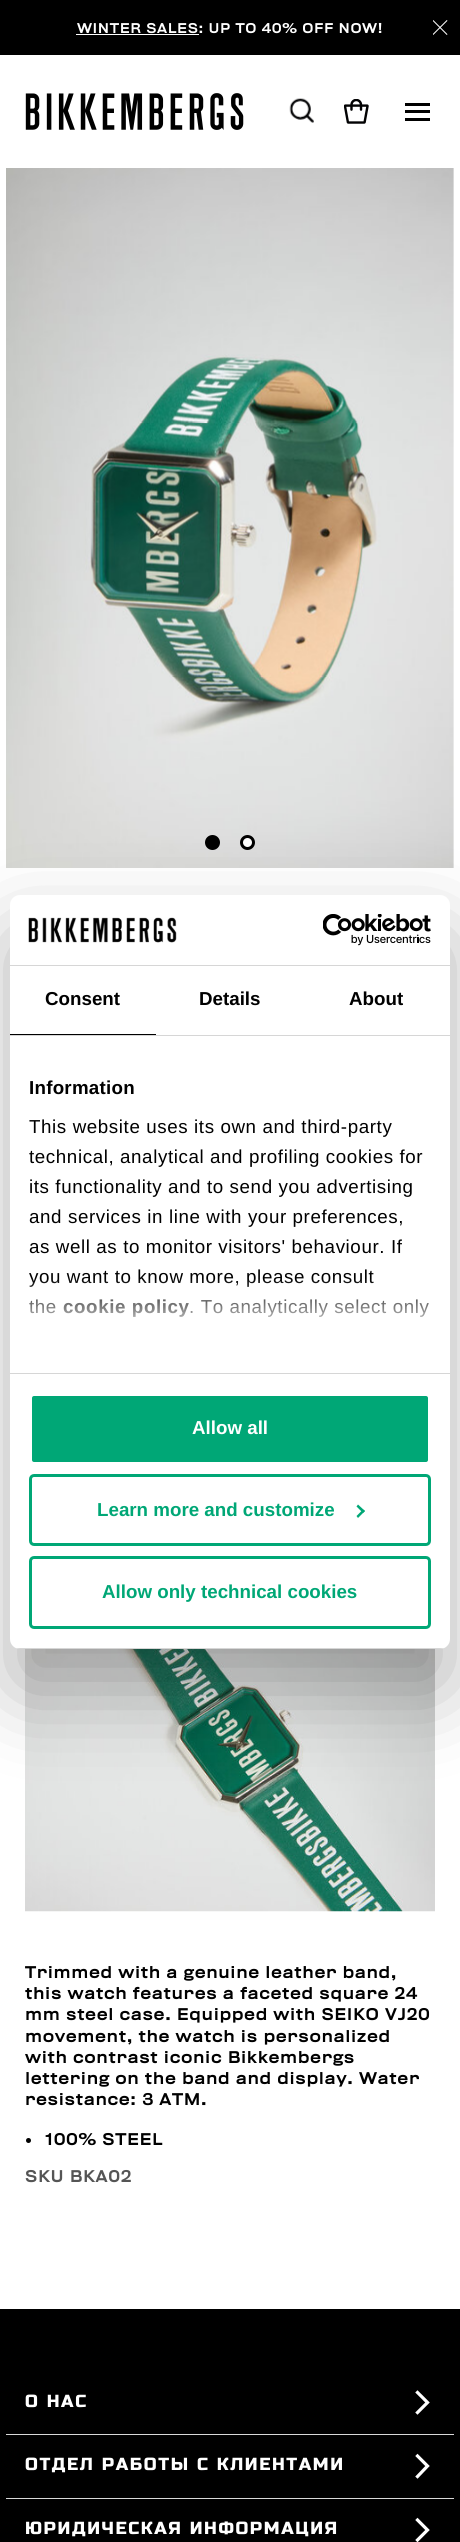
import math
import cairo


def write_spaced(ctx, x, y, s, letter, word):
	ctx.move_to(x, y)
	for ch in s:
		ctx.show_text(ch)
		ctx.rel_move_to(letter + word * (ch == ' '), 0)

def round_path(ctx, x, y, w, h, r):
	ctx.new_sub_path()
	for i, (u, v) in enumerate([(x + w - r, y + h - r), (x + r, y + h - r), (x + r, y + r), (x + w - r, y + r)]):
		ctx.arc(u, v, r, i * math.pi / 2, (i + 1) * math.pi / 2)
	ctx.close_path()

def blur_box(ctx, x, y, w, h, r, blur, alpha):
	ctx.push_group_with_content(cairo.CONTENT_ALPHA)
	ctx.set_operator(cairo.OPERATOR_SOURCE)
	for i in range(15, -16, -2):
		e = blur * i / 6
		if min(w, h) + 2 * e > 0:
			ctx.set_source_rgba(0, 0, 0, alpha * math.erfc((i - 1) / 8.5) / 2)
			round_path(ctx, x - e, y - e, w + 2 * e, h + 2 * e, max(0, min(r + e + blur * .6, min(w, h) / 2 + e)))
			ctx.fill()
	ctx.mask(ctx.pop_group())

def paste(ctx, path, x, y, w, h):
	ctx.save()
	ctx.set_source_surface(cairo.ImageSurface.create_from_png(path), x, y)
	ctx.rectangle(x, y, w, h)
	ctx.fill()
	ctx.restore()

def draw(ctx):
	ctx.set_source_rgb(1, 1, 1)
	ctx.paint()
	ctx.set_source_rgb(0, 0, 0)
	ctx.rectangle(0, 0, 460, 55)
	ctx.fill()
	ctx.select_font_face('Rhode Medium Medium')
	ctx.set_font_size(12.5)
	ctx.set_source_rgb(1, 1, 1)
	write_spaced(ctx, 77, 33, 'WINTER SALES: UP TO 40% OFF NOW!', 0.6, 0)
	ctx.rectangle(76, 34, 123, 1)
	ctx.fill()
	paste(ctx, 'media/1.png', 433, 20, 15, 15)
	paste(ctx, 'media/2.png', 25, 93, 219, 37)
	paste(ctx, 'media/3.png', 289, 98, 25, 25)
	paste(ctx, 'media/4.png', 344, 99, 25, 25)
	ctx.set_source_rgb(0, 0, 0)
	ctx.rectangle(405, 103, 25, 3)
	ctx.rectangle(405, 110, 25, 3)
	ctx.rectangle(405, 118, 25, 3)
	ctx.fill()
	paste(ctx, 'media/5.png', 6, 168, 448, 700)
	ctx.arc(212.5, 842.5, 6, 0, 2 * math.pi)
	ctx.fill_preserve()
	ctx.set_line_width(3)
	ctx.stroke()
	ctx.set_source_rgb(1, 1, 1)
	ctx.arc(247.5, 842.5, 6, 0, 2 * math.pi)
	ctx.fill_preserve()
	ctx.set_source_rgb(0, 0, 0)
	ctx.stroke()
	paste(ctx, 'media/6.png', 25, 1649, 410, 263)
	ctx.set_font_size(15)
	for x, y, s in [
		(25, 1978, 'Trimmed with a genuine leather band,'),
		(25, 1999, 'this watch features a faceted square 24'),
		(25, 2020, 'mm steel case. Equipped with SEIKO VJ20'),
		(25, 2042, 'movement, the watch is personalized'),
		(25, 2063, 'with contrast iconic Bikkembergs'),
		(25, 2084, 'lettering on the band and display. Water'),
		(25, 2105, 'resistance: 3 ATM.'),
	]:
		write_spaced(ctx, x, y, s, 0.6, 0)
	ctx.new_path()
	ctx.arc(28.5, 2140.5, 2.5, 0, 2 * math.pi)
	ctx.fill()
	write_spaced(ctx, 45, 2145, '100% STEEL', 0.6, 0)
	ctx.set_source_rgb(0.333, 0.333, 0.333)
	write_spaced(ctx, 25, 2182, 'SKU BKA02', 0.6, 0)
	ctx.set_source_rgb(0, 0, 0)
	ctx.rectangle(0, 2309, 460, 233)
	ctx.fill()
	ctx.set_source_rgb(0.847, 0.847, 0.847)
	ctx.rectangle(6, 2434, 448, 1)
	ctx.fill()
	ctx.select_font_face('Russo One')
	ctx.set_font_size(17.5)
	ctx.set_source_rgb(1, 1, 1)
	write_spaced(ctx, 25, 2407, 'О НАС', 1.6, 0.5)
	ctx.new_path()
	ctx.move_to(427.5, 2402.5)
	ctx.line_to(417.5, 2392.5)
	ctx.move_to(427.5, 2402.5)
	ctx.line_to(417.5, 2412.5)
	ctx.set_line_width(3.2)
	ctx.set_line_cap(cairo.LINE_CAP_SQUARE)
	ctx.stroke()
	ctx.set_source_rgb(0.847, 0.847, 0.847)
	ctx.rectangle(6, 2498, 448, 1)
	ctx.fill()
	ctx.set_source_rgb(1, 1, 1)
	write_spaced(ctx, 25, 2470, 'ОТДЕЛ РАБОТЫ С КЛИЕНТАМИ', 1.6, 0.5)
	ctx.new_path()
	ctx.move_to(427.5, 2466)
	ctx.line_to(417.5, 2456)
	ctx.move_to(427.5, 2466)
	ctx.line_to(417.5, 2476.5)
	ctx.stroke()
	write_spaced(ctx, 25, 2534, 'ЮРИДИЧЕСКАЯ ИНФОРМАЦИЯ', 1.6, 0.5)
	ctx.new_path()
	ctx.move_to(427.5, 2530)
	ctx.line_to(417.5, 2520)
	ctx.move_to(427.5, 2530)
	ctx.line_to(417.5, 2540)
	ctx.stroke()
	ctx.set_source_rgb(0, 0, 0)
	blur_box(ctx, 10, 935, 440, 754, 10, 42.5, 0.3)
	ctx.set_source_rgb(1, 1, 1)
	round_path(ctx, 10, 895, 440, 754, 10)
	ctx.fill()
	ctx.set_source_rgb(0.839, 0.839, 0.839)
	ctx.rectangle(10, 965, 440, 1)
	ctx.fill()
	paste(ctx, 'media/7.png', 28, 917, 149, 26)
	paste(ctx, 'media/8.png', 323, 914, 108, 32)
	ctx.rectangle(10, 1035, 440, 1)
	ctx.fill()
	ctx.set_source_rgb(0, 0, 0)
	ctx.rectangle(10, 1034, 146, 1)
	ctx.fill()
	ctx.select_font_face('Liberation Sans', cairo.FONT_SLANT_NORMAL, cairo.FONT_WEIGHT_BOLD)
	ctx.set_font_size(18.75)
	for x, y, s in [
		(45, 1005, 'Consent'),
		(199, 1005, 'Details'),
		(349, 1005, 'About'),
	]:
		ctx.move_to(x, y)
		ctx.show_text(s)
	ctx.set_source_rgb(0.839, 0.839, 0.839)
	ctx.rectangle(10, 1373, 440, 1)
	ctx.fill()
	ctx.set_source_rgb(0, 0, 0)
	write_spaced(ctx, 29, 1094, 'Information', 0.25, 0)
	ctx.select_font_face('Liberation Sans')
	for x, y, s in [
		(29, 1133, 'This website uses its own and third-party'),
		(29, 1163, 'technical, analytical and profiling cookies for'),
		(29, 1193, 'its functionality and to send you advertising'),
		(29, 1223, 'and services in line with your preferences,'),
		(29, 1253, 'as well as to monitor visitors\' behaviour. If'),
		(29, 1283, 'you want to know more, please consult'),
		(29, 1313, 'the'),
	]:
		write_spaced(ctx, x, y, s, 0.6, 0)
	ctx.select_font_face('Liberation Sans', cairo.FONT_SLANT_NORMAL, cairo.FONT_WEIGHT_BOLD)
	write_spaced(ctx, 63, 1313, 'cookie policy', 0.6, 0)
	ctx.select_font_face('Liberation Sans')
	write_spaced(ctx, 189, 1313, '. To analytically select only', 0.6, 0)
	gradient = cairo.LinearGradient(222, 1372, 222, 1278)
	gradient.add_color_stop_rgba(0, 1, 1, 1, 1)
	gradient.add_color_stop_rgba(0.5, 1, 1, 1, 0.8)
	gradient.add_color_stop_rgba(1, 1, 1, 1, 0)
	ctx.set_source(gradient)
	ctx.rectangle(29, 1279, 401, 38)
	ctx.fill()
	ctx.save()
	round_path(ctx, 10, 895, 440, 754, 10)
	ctx.clip()
	ctx.set_source_rgb(0.839, 0.839, 0.839)
	ctx.rectangle(10, 1648, 440, 1)
	ctx.fill()
	ctx.restore()
	ctx.set_source_rgb(0, 0.655, 0.463)
	round_path(ctx, 30.5, 1394.5, 399, 69, 3.5)
	ctx.fill_preserve()
	ctx.set_source_rgb(1, 1, 1)
	ctx.set_line_width(3)
	ctx.set_line_cap(cairo.LINE_CAP_BUTT)
	ctx.stroke()
	ctx.select_font_face('Liberation Sans', cairo.FONT_SLANT_NORMAL, cairo.FONT_WEIGHT_BOLD)
	ctx.move_to(192, 1434)
	ctx.show_text('Allow all')
	round_path(ctx, 30.5, 1475.5, 399, 69, 3.5)
	ctx.set_source_rgb(0, 0.655, 0.463)
	ctx.stroke()
	ctx.move_to(97, 1516)
	ctx.show_text('Learn more and customize')
	ctx.new_path()
	ctx.move_to(358, 1504.5)
	ctx.line_to(365, 1511)
	ctx.line_to(363, 1513)
	ctx.line_to(356.5, 1506.5)
	ctx.close_path()
	ctx.fill()
	ctx.new_path()
	ctx.move_to(363, 1509.5)
	ctx.line_to(365, 1511)
	ctx.line_to(358, 1518)
	ctx.line_to(356.5, 1516)
	ctx.close_path()
	ctx.fill()
	round_path(ctx, 30.5, 1557.5, 399, 70, 3.5)
	ctx.stroke()
	ctx.move_to(102, 1598)
	ctx.show_text('Allow only technical cookies')


surface = cairo.ImageSurface(cairo.FORMAT_RGB24, 460, 2542)
ctx = cairo.Context(surface)
options = cairo.FontOptions()
options.set_hint_metrics(cairo.HINT_METRICS_OFF)
options.set_hint_style(cairo.HINT_STYLE_NONE)
ctx.set_font_options(options)
ctx.set_miter_limit(4)
draw(ctx)
surface.write_to_png('image.png')
